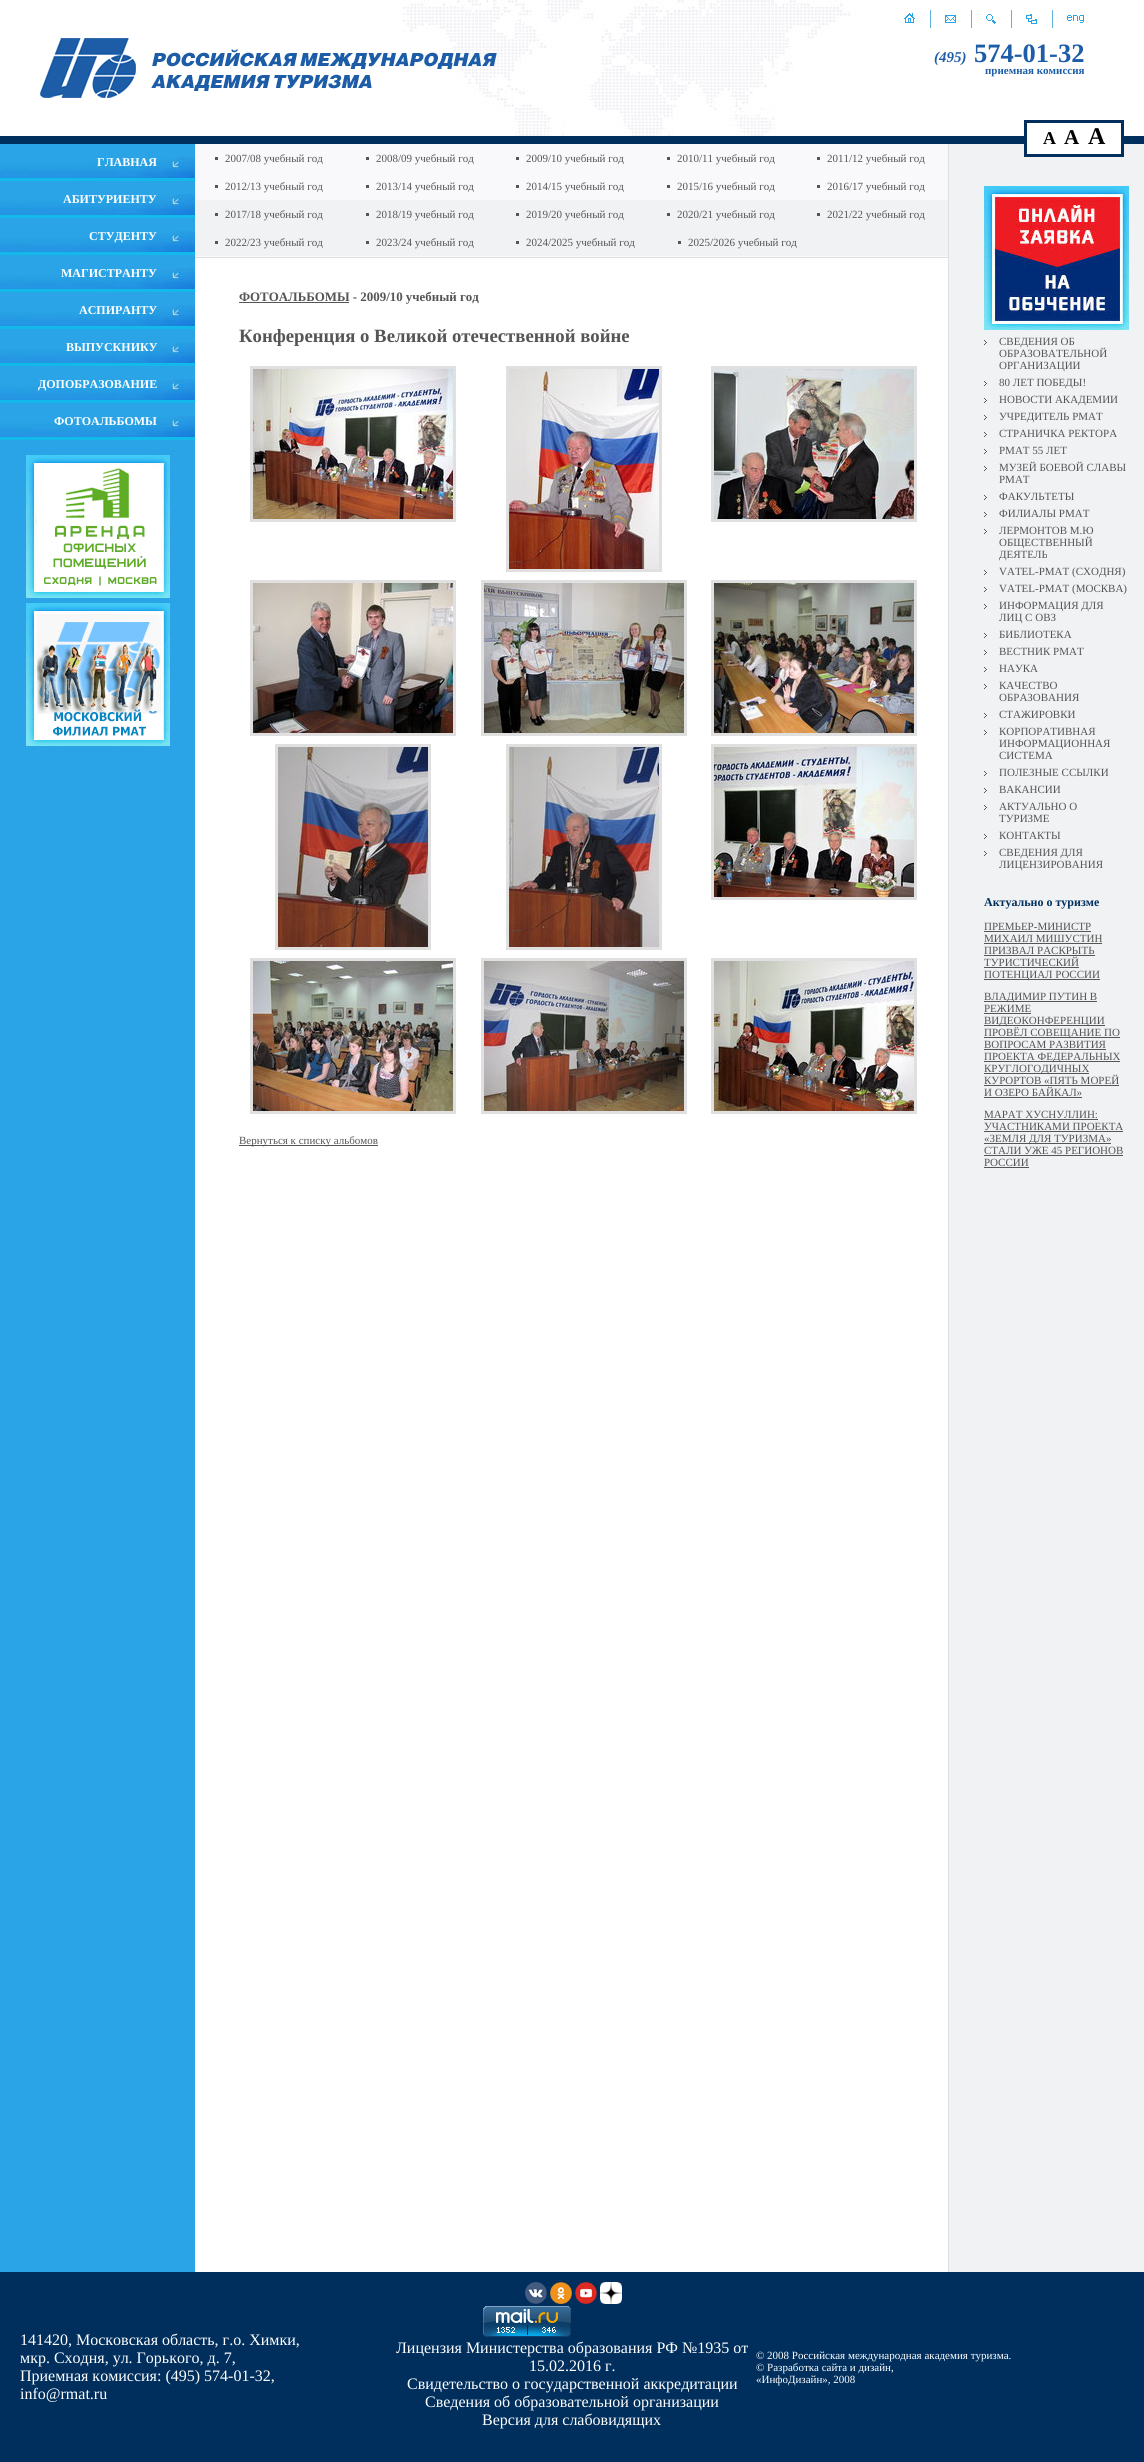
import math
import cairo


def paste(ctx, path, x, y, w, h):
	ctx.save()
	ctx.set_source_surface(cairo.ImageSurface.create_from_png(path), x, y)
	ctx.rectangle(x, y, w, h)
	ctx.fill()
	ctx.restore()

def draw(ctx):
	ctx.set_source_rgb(1, 1, 1)
	ctx.paint()
	ctx.set_source_rgb(0, 0.184, 0.365)
	ctx.rectangle(0, 136, 1144, 8)
	ctx.fill()
	paste(ctx, 'media/1.png', 402, 0, 463, 136)
	paste(ctx, 'media/2.png', 40, 38, 457, 60)
	paste(ctx, 'media/3.png', 904, 13, 11, 10)
	ctx.set_source_rgb(0.384, 0.698, 0.875)
	ctx.rectangle(930, 10, 1, 18)
	ctx.fill()
	paste(ctx, 'media/4.png', 945, 15, 11, 8)
	ctx.rectangle(971, 10, 1, 18)
	ctx.fill()
	paste(ctx, 'media/5.png', 986, 14, 10, 10)
	ctx.rectangle(1011, 10, 1, 18)
	ctx.fill()
	paste(ctx, 'media/6.png', 1026, 14, 11, 10)
	ctx.rectangle(1052, 10, 1, 18)
	ctx.fill()
	paste(ctx, 'media/7.png', 1067, 15, 17, 8)
	ctx.select_font_face('Liberation Serif', cairo.FONT_SLANT_ITALIC, cairo.FONT_WEIGHT_BOLD)
	ctx.set_font_size(15)
	ctx.set_source_rgb(0.114, 0.365, 0.655)
	ctx.move_to(934, 62)
	ctx.show_text('(495)')
	ctx.select_font_face('Liberation Serif', cairo.FONT_SLANT_NORMAL, cairo.FONT_WEIGHT_BOLD)
	ctx.set_font_size(26.5)
	ctx.move_to(974, 62)
	ctx.show_text('574-01-32')
	ctx.set_font_size(11)
	ctx.move_to(985, 74)
	ctx.show_text('приемная комиссия')
	ctx.set_source_rgb(0.165, 0.643, 0.906)
	ctx.rectangle(0, 144, 195, 2128)
	ctx.fill()
	ctx.set_source_rgb(0.945, 0.949, 0.957)
	ctx.rectangle(949, 144, 195, 2128)
	ctx.fill()
	ctx.set_source_rgb(1, 1, 1)
	ctx.rectangle(1027, 136, 94, 18)
	ctx.fill()
	ctx.rectangle(1025.5, 121.5, 97, 34)
	ctx.set_source_rgb(0, 0.184, 0.365)
	ctx.set_line_width(3)
	ctx.stroke()
	ctx.set_font_size(18)
	ctx.set_source_rgb(0, 0, 0)
	ctx.move_to(1043, 144)
	ctx.show_text('A')
	ctx.set_font_size(21)
	ctx.move_to(1064, 144)
	ctx.show_text('A')
	ctx.set_font_size(24)
	ctx.move_to(1088, 144)
	ctx.show_text('A')
	paste(ctx, 'media/8.png', 0, 157, 195, 21)
	ctx.set_font_size(12)
	ctx.set_source_rgb(1, 1, 1)
	ctx.move_to(97, 166)
	ctx.show_text('ГЛАВНАЯ')
	ctx.set_source_rgb(0.082, 0.725, 0.925)
	ctx.rectangle(0, 178, 195, 3)
	ctx.fill()
	paste(ctx, 'media/8.png', 0, 194, 195, 21)
	ctx.set_source_rgb(1, 1, 1)
	ctx.move_to(63, 203)
	ctx.show_text('АБИТУРИЕНТУ')
	ctx.set_source_rgb(0.082, 0.725, 0.925)
	ctx.rectangle(0, 215, 195, 3)
	ctx.fill()
	paste(ctx, 'media/8.png', 0, 231, 195, 21)
	ctx.set_source_rgb(1, 1, 1)
	ctx.move_to(89, 240)
	ctx.show_text('СТУДЕНТУ')
	ctx.set_source_rgb(0.082, 0.725, 0.925)
	ctx.rectangle(0, 252, 195, 3)
	ctx.fill()
	paste(ctx, 'media/8.png', 0, 268, 195, 21)
	ctx.set_source_rgb(1, 1, 1)
	ctx.move_to(61, 277)
	ctx.show_text('МАГИСТРАНТУ')
	ctx.set_source_rgb(0.082, 0.725, 0.925)
	ctx.rectangle(0, 289, 195, 3)
	ctx.fill()
	paste(ctx, 'media/8.png', 0, 305, 195, 21)
	ctx.set_source_rgb(1, 1, 1)
	ctx.move_to(79, 314)
	ctx.show_text('АСПИРАНТУ')
	ctx.set_source_rgb(0.082, 0.725, 0.925)
	ctx.rectangle(0, 326, 195, 3)
	ctx.fill()
	paste(ctx, 'media/8.png', 0, 342, 195, 21)
	ctx.set_source_rgb(1, 1, 1)
	ctx.move_to(66, 351)
	ctx.show_text('ВЫПУСКНИКУ')
	ctx.set_source_rgb(0.082, 0.725, 0.925)
	ctx.rectangle(0, 363, 195, 3)
	ctx.fill()
	paste(ctx, 'media/8.png', 0, 379, 195, 21)
	ctx.set_source_rgb(1, 1, 1)
	ctx.move_to(38, 388)
	ctx.show_text('ДОПОБРАЗОВАНИЕ')
	ctx.set_source_rgb(0.082, 0.725, 0.925)
	ctx.rectangle(0, 400, 195, 3)
	ctx.fill()
	paste(ctx, 'media/8.png', 0, 416, 195, 21)
	ctx.set_source_rgb(1, 1, 1)
	ctx.move_to(54, 425)
	ctx.show_text('ФОТОАЛЬБОМЫ')
	ctx.set_source_rgb(0.082, 0.725, 0.925)
	ctx.rectangle(0, 437, 195, 3)
	ctx.fill()
	paste(ctx, 'media/9.png', 26, 455, 144, 143)
	paste(ctx, 'media/10.png', 26, 603, 144, 143)
	ctx.set_source_rgb(0.976, 0.976, 0.984)
	ctx.rectangle(195, 144, 753, 113)
	ctx.fill()
	ctx.set_source_rgb(0.878, 0.878, 0.878)
	ctx.rectangle(195, 257, 753, 1)
	ctx.fill()
	ctx.set_source_rgb(0.333, 0.333, 0.333)
	ctx.rectangle(215, 157, 3, 3)
	ctx.fill()
	ctx.select_font_face('Liberation Serif')
	ctx.set_font_size(11)
	ctx.move_to(225, 162)
	ctx.show_text('2007/08 учебный год')
	ctx.rectangle(366, 157, 3, 3)
	ctx.fill()
	ctx.move_to(376, 162)
	ctx.show_text('2008/09 учебный год')
	ctx.rectangle(516, 157, 3, 3)
	ctx.fill()
	ctx.move_to(526, 162)
	ctx.show_text('2009/10 учебный год')
	ctx.rectangle(667, 157, 3, 3)
	ctx.fill()
	ctx.move_to(677, 162)
	ctx.show_text('2010/11 учебный год')
	ctx.rectangle(817, 157, 3, 3)
	ctx.fill()
	ctx.move_to(827, 162)
	ctx.show_text('2011/12 учебный год')
	ctx.rectangle(215, 185, 3, 3)
	ctx.fill()
	ctx.move_to(225, 190)
	ctx.show_text('2012/13 учебный год')
	ctx.rectangle(366, 185, 3, 3)
	ctx.fill()
	ctx.move_to(376, 190)
	ctx.show_text('2013/14 учебный год')
	ctx.rectangle(516, 185, 3, 3)
	ctx.fill()
	ctx.move_to(526, 190)
	ctx.show_text('2014/15 учебный год')
	ctx.rectangle(667, 185, 3, 3)
	ctx.fill()
	ctx.move_to(677, 190)
	ctx.show_text('2015/16 учебный год')
	ctx.rectangle(817, 185, 3, 3)
	ctx.fill()
	ctx.move_to(827, 190)
	ctx.show_text('2016/17 учебный год')
	ctx.set_source_rgb(0.945, 0.949, 0.957)
	ctx.rectangle(195, 200, 753, 56)
	ctx.fill()
	ctx.set_source_rgb(0.333, 0.333, 0.333)
	ctx.rectangle(215, 213, 3, 3)
	ctx.fill()
	ctx.move_to(225, 218)
	ctx.show_text('2017/18 учебный год')
	ctx.rectangle(366, 213, 3, 3)
	ctx.fill()
	ctx.move_to(376, 218)
	ctx.show_text('2018/19 учебный год')
	ctx.rectangle(516, 213, 3, 3)
	ctx.fill()
	ctx.move_to(526, 218)
	ctx.show_text('2019/20 учебный год')
	ctx.rectangle(667, 213, 3, 3)
	ctx.fill()
	ctx.move_to(677, 218)
	ctx.show_text('2020/21 учебный год')
	ctx.rectangle(817, 213, 3, 3)
	ctx.fill()
	ctx.move_to(827, 218)
	ctx.show_text('2021/22 учебный год')
	ctx.rectangle(215, 241, 3, 3)
	ctx.fill()
	ctx.move_to(225, 246)
	ctx.show_text('2022/23 учебный год')
	ctx.rectangle(366, 241, 3, 3)
	ctx.fill()
	ctx.move_to(376, 246)
	ctx.show_text('2023/24 учебный год')
	ctx.rectangle(516, 241, 3, 3)
	ctx.fill()
	ctx.move_to(526, 246)
	ctx.show_text('2024/2025 учебный год')
	ctx.rectangle(678, 241, 3, 3)
	ctx.fill()
	ctx.move_to(688, 246)
	ctx.show_text('2025/2026 учебный год')
	ctx.rectangle(239, 302, 110, 1)
	ctx.fill()
	ctx.select_font_face('Liberation Serif', cairo.FONT_SLANT_NORMAL, cairo.FONT_WEIGHT_BOLD)
	ctx.set_font_size(12.9)
	ctx.move_to(239, 301)
	ctx.show_text('ФОТОАЛЬБОМЫ - 2009/10 учебный год')
	ctx.set_font_size(18.75)
	ctx.move_to(239, 342)
	ctx.show_text('Конференция о Великой отечественной войне')
	ctx.rectangle(251.5, 367.5, 203, 153)
	ctx.set_source_rgb(0.878, 0.878, 0.878)
	ctx.stroke()
	paste(ctx, 'media/11.png', 253, 369, 200, 150)
	ctx.rectangle(507.5, 367.5, 153, 203)
	ctx.stroke()
	paste(ctx, 'media/12.png', 509, 369, 150, 200)
	ctx.rectangle(712.5, 367.5, 203, 153)
	ctx.stroke()
	paste(ctx, 'media/13.png', 714, 369, 200, 150)
	ctx.rectangle(251.5, 581.5, 203, 153)
	ctx.stroke()
	paste(ctx, 'media/14.png', 253, 583, 200, 150)
	ctx.rectangle(482.5, 581.5, 203, 153)
	ctx.stroke()
	paste(ctx, 'media/15.png', 484, 583, 200, 150)
	ctx.rectangle(712.5, 581.5, 203, 153)
	ctx.stroke()
	paste(ctx, 'media/16.png', 714, 583, 200, 150)
	ctx.rectangle(276.5, 745.5, 153, 203)
	ctx.stroke()
	paste(ctx, 'media/17.png', 278, 747, 150, 200)
	ctx.rectangle(507.5, 745.5, 153, 203)
	ctx.stroke()
	paste(ctx, 'media/18.png', 509, 747, 150, 200)
	ctx.rectangle(712.5, 745.5, 203, 153)
	ctx.stroke()
	paste(ctx, 'media/19.png', 714, 747, 200, 150)
	ctx.rectangle(251.5, 959.5, 203, 153)
	ctx.stroke()
	paste(ctx, 'media/20.png', 253, 961, 200, 150)
	ctx.rectangle(482.5, 959.5, 203, 153)
	ctx.stroke()
	paste(ctx, 'media/21.png', 484, 961, 200, 150)
	ctx.rectangle(712.5, 959.5, 203, 153)
	ctx.stroke()
	paste(ctx, 'media/22.png', 714, 961, 200, 150)
	ctx.set_source_rgb(0.333, 0.333, 0.333)
	ctx.rectangle(239, 1145, 139, 1)
	ctx.fill()
	ctx.select_font_face('Liberation Serif')
	ctx.set_font_size(11)
	ctx.move_to(239, 1144)
	ctx.show_text('Вернуться к списку альбомов')
	ctx.set_source_rgb(0.878, 0.878, 0.878)
	ctx.rectangle(948, 144, 1, 2128)
	ctx.fill()
	paste(ctx, 'media/23.png', 984, 186, 145, 144)
	paste(ctx, 'media/24.png', 984, 340, 3, 5)
	ctx.set_source_rgb(0.333, 0.333, 0.333)
	for x, y, s in [
		(999, 345, 'СВЕДЕНИЯ ОБ'),
		(999, 357, 'ОБРАЗОВАТЕЛЬНОЙ'),
		(999, 369, 'ОРГАНИЗАЦИИ'),
	]:
		ctx.move_to(x, y)
		ctx.show_text(s)
	paste(ctx, 'media/24.png', 984, 381, 3, 5)
	ctx.move_to(999, 386)
	ctx.show_text('80 ЛЕТ ПОБЕДЫ!')
	paste(ctx, 'media/24.png', 984, 398, 3, 5)
	ctx.move_to(999, 403)
	ctx.show_text('НОВОСТИ АКАДЕМИИ')
	paste(ctx, 'media/24.png', 984, 415, 3, 5)
	ctx.move_to(999, 420)
	ctx.show_text('УЧРЕДИТЕЛЬ РМАТ')
	paste(ctx, 'media/24.png', 984, 432, 3, 5)
	ctx.move_to(999, 437)
	ctx.show_text('СТРАНИЧКА РЕКТОРА')
	paste(ctx, 'media/24.png', 984, 449, 3, 5)
	ctx.move_to(999, 454)
	ctx.show_text('РМАТ 55 ЛЕТ')
	paste(ctx, 'media/24.png', 984, 466, 3, 5)
	ctx.move_to(999, 471)
	ctx.show_text('МУЗЕЙ БОЕВОЙ СЛАВЫ')
	ctx.move_to(999, 483)
	ctx.show_text('РМАТ')
	paste(ctx, 'media/24.png', 984, 495, 3, 5)
	ctx.move_to(999, 500)
	ctx.show_text('ФАКУЛЬТЕТЫ')
	paste(ctx, 'media/24.png', 984, 512, 3, 5)
	ctx.move_to(999, 517)
	ctx.show_text('ФИЛИАЛЫ РМАТ')
	paste(ctx, 'media/24.png', 984, 529, 3, 5)
	for x, y, s in [
		(999, 534, 'ЛЕРМОНТОВ М.Ю'),
		(999, 546, 'ОБЩЕСТВЕННЫЙ'),
		(999, 558, 'ДЕЯТЕЛЬ'),
	]:
		ctx.move_to(x, y)
		ctx.show_text(s)
	paste(ctx, 'media/24.png', 984, 570, 3, 5)
	ctx.move_to(999, 575)
	ctx.show_text('VATEL-РМАТ (СХОДНЯ)')
	paste(ctx, 'media/24.png', 984, 587, 3, 5)
	ctx.move_to(999, 592)
	ctx.show_text('VATEL-РМАТ (МОСКВА)')
	paste(ctx, 'media/24.png', 984, 604, 3, 5)
	ctx.move_to(999, 609)
	ctx.show_text('ИНФОРМАЦИЯ ДЛЯ')
	ctx.move_to(999, 621)
	ctx.show_text('ЛИЦ С ОВЗ')
	paste(ctx, 'media/24.png', 984, 633, 3, 5)
	ctx.move_to(999, 638)
	ctx.show_text('БИБЛИОТЕКА')
	paste(ctx, 'media/24.png', 984, 650, 3, 5)
	ctx.move_to(999, 655)
	ctx.show_text('ВЕСТНИК РМАТ')
	paste(ctx, 'media/24.png', 984, 667, 3, 5)
	ctx.move_to(999, 672)
	ctx.show_text('НАУКА')
	paste(ctx, 'media/24.png', 984, 684, 3, 5)
	ctx.move_to(999, 689)
	ctx.show_text('КАЧЕСТВО')
	ctx.move_to(999, 701)
	ctx.show_text('ОБРАЗОВАНИЯ')
	paste(ctx, 'media/24.png', 984, 713, 3, 5)
	ctx.move_to(999, 718)
	ctx.show_text('СТАЖИРОВКИ')
	paste(ctx, 'media/24.png', 984, 730, 3, 5)
	for x, y, s in [
		(999, 735, 'КОРПОРАТИВНАЯ'),
		(999, 747, 'ИНФОРМАЦИОННАЯ'),
		(999, 759, 'СИСТЕМА'),
	]:
		ctx.move_to(x, y)
		ctx.show_text(s)
	paste(ctx, 'media/24.png', 984, 771, 3, 5)
	ctx.move_to(999, 776)
	ctx.show_text('ПОЛЕЗНЫЕ ССЫЛКИ')
	paste(ctx, 'media/24.png', 984, 788, 3, 5)
	ctx.move_to(999, 793)
	ctx.show_text('ВАКАНСИИ')
	paste(ctx, 'media/24.png', 984, 805, 3, 5)
	ctx.move_to(999, 810)
	ctx.show_text('АКТУАЛЬНО О')
	ctx.move_to(999, 822)
	ctx.show_text('ТУРИЗМЕ')
	paste(ctx, 'media/24.png', 984, 834, 3, 5)
	ctx.move_to(999, 839)
	ctx.show_text('КОНТАКТЫ')
	paste(ctx, 'media/24.png', 984, 851, 3, 5)
	ctx.move_to(999, 856)
	ctx.show_text('СВЕДЕНИЯ ДЛЯ')
	ctx.move_to(999, 868)
	ctx.show_text('ЛИЦЕНЗИРОВАНИЯ')
	ctx.select_font_face('Liberation Serif', cairo.FONT_SLANT_NORMAL, cairo.FONT_WEIGHT_BOLD)
	ctx.set_font_size(12)
	ctx.set_source_rgb(0, 0.184, 0.365)
	ctx.move_to(984, 906)
	ctx.show_text('Актуально о туризме')
	ctx.select_font_face('Liberation Serif')
	ctx.set_font_size(11)
	ctx.set_source_rgb(0.333, 0.333, 0.333)
	ctx.move_to(984, 930)
	ctx.show_text('ПРЕМЬЕР-МИНИСТР')
	ctx.rectangle(984, 931, 107, 1)
	ctx.fill()
	ctx.move_to(984, 942)
	ctx.show_text('МИХАИЛ МИШУСТИН')
	ctx.rectangle(984, 943, 118, 1)
	ctx.fill()
	ctx.move_to(984, 954)
	ctx.show_text('ПРИЗВАЛ РАСКРЫТЬ')
	ctx.rectangle(984, 955, 111, 1)
	ctx.fill()
	ctx.move_to(984, 966)
	ctx.show_text('ТУРИСТИЧЕСКИЙ')
	ctx.rectangle(984, 967, 95, 1)
	ctx.fill()
	ctx.rectangle(984, 979, 116, 1)
	ctx.fill()
	ctx.move_to(984, 978)
	ctx.show_text('ПОТЕНЦИАЛ РОССИИ')
	ctx.rectangle(984, 1001, 113, 1)
	ctx.fill()
	ctx.move_to(984, 1000)
	ctx.show_text('ВЛАДИМИР ПУТИН В')
	ctx.move_to(984, 1012)
	ctx.show_text('РЕЖИМЕ')
	ctx.rectangle(984, 1013, 47, 1)
	ctx.fill()
	ctx.rectangle(984, 1025, 121, 1)
	ctx.fill()
	ctx.move_to(984, 1024)
	ctx.show_text('ВИДЕОКОНФЕРЕНЦИИ')
	ctx.rectangle(984, 1037, 136, 1)
	ctx.fill()
	ctx.move_to(984, 1036)
	ctx.show_text('ПРОВЁЛ СОВЕЩАНИЕ ПО')
	ctx.move_to(984, 1048)
	ctx.show_text('ВОПРОСАМ РАЗВИТИЯ')
	ctx.rectangle(984, 1049, 122, 1)
	ctx.fill()
	ctx.rectangle(984, 1061, 136, 1)
	ctx.fill()
	ctx.move_to(984, 1060)
	ctx.show_text('ПРОЕКТА ФЕДЕРАЛЬНЫХ')
	ctx.rectangle(984, 1073, 105, 1)
	ctx.fill()
	ctx.move_to(984, 1072)
	ctx.show_text('КРУГЛОГОДИЧНЫХ')
	ctx.move_to(984, 1084)
	ctx.show_text('КУРОРТОВ «ПЯТЬ МОРЕЙ')
	ctx.rectangle(984, 1085, 135, 1)
	ctx.fill()
	ctx.move_to(984, 1096)
	ctx.show_text('И ОЗЕРО БАЙКАЛ»')
	ctx.rectangle(984, 1097, 98, 1)
	ctx.fill()
	ctx.move_to(984, 1118)
	ctx.show_text('МАРАТ ХУСНУЛЛИН:')
	ctx.rectangle(984, 1119, 114, 1)
	ctx.fill()
	ctx.move_to(984, 1130)
	ctx.show_text('УЧАСТНИКАМИ ПРОЕКТА')
	ctx.rectangle(984, 1131, 139, 1)
	ctx.fill()
	ctx.rectangle(984, 1143, 127, 1)
	ctx.fill()
	ctx.move_to(984, 1142)
	ctx.show_text('«ЗЕМЛЯ ДЛЯ ТУРИЗМА»')
	ctx.move_to(984, 1154)
	ctx.show_text('СТАЛИ УЖЕ 45 РЕГИОНОВ')
	ctx.rectangle(984, 1155, 139, 1)
	ctx.fill()
	ctx.move_to(984, 1166)
	ctx.show_text('РОССИИ')
	ctx.rectangle(984, 1167, 45, 1)
	ctx.fill()
	ctx.set_source_rgb(0, 0.184, 0.365)
	ctx.rectangle(0, 2272, 1144, 190)
	ctx.fill()
	ctx.set_font_size(16)
	ctx.set_source_rgb(1, 1, 1)
	for x, y, s in [
		(20, 2345, '141420, Московская область, г.о. Химки,'),
		(20, 2363, 'мкр. Сходня, ул. Горького, д. 7,'),
		(20, 2381, 'Приемная комиссия: (495) 574-01-32,'),
		(20, 2399, 'info@rmat.ru'),
	]:
		ctx.move_to(x, y)
		ctx.show_text(s)
	paste(ctx, 'media/25.png', 525, 2282, 22, 22)
	paste(ctx, 'media/26.png', 550, 2282, 22, 22)
	paste(ctx, 'media/27.png', 575, 2282, 22, 22)
	paste(ctx, 'media/28.png', 600, 2282, 22, 22)
	paste(ctx, 'media/29.png', 483, 2306, 88, 31)
	for x, y, s in [
		(396, 2353, 'Лицензия Министерства образования РФ №1935 от'),
		(529, 2371, '15.02.2016 г.'),
		(407, 2389, 'Свидетельство о государственной аккредитации'),
		(425, 2407, 'Сведения об образовательной организации'),
		(482, 2425, 'Версия для слабовидящих'),
	]:
		ctx.move_to(x, y)
		ctx.show_text(s)
	ctx.set_font_size(11)
	for x, y, s in [
		(756, 2359, '© 2008 Российская международная академия туризма.'),
		(756, 2371, '© Разработка сайта и дизайн,'),
		(756, 2383, '«ИнфоДизайн», 2008'),
	]:
		ctx.move_to(x, y)
		ctx.show_text(s)


surface = cairo.ImageSurface(cairo.FORMAT_RGB24, 1144, 2462)
ctx = cairo.Context(surface)
options = cairo.FontOptions()
options.set_hint_metrics(cairo.HINT_METRICS_OFF)
options.set_hint_style(cairo.HINT_STYLE_NONE)
ctx.set_font_options(options)
ctx.set_miter_limit(4)
draw(ctx)
surface.write_to_png('image.png')
